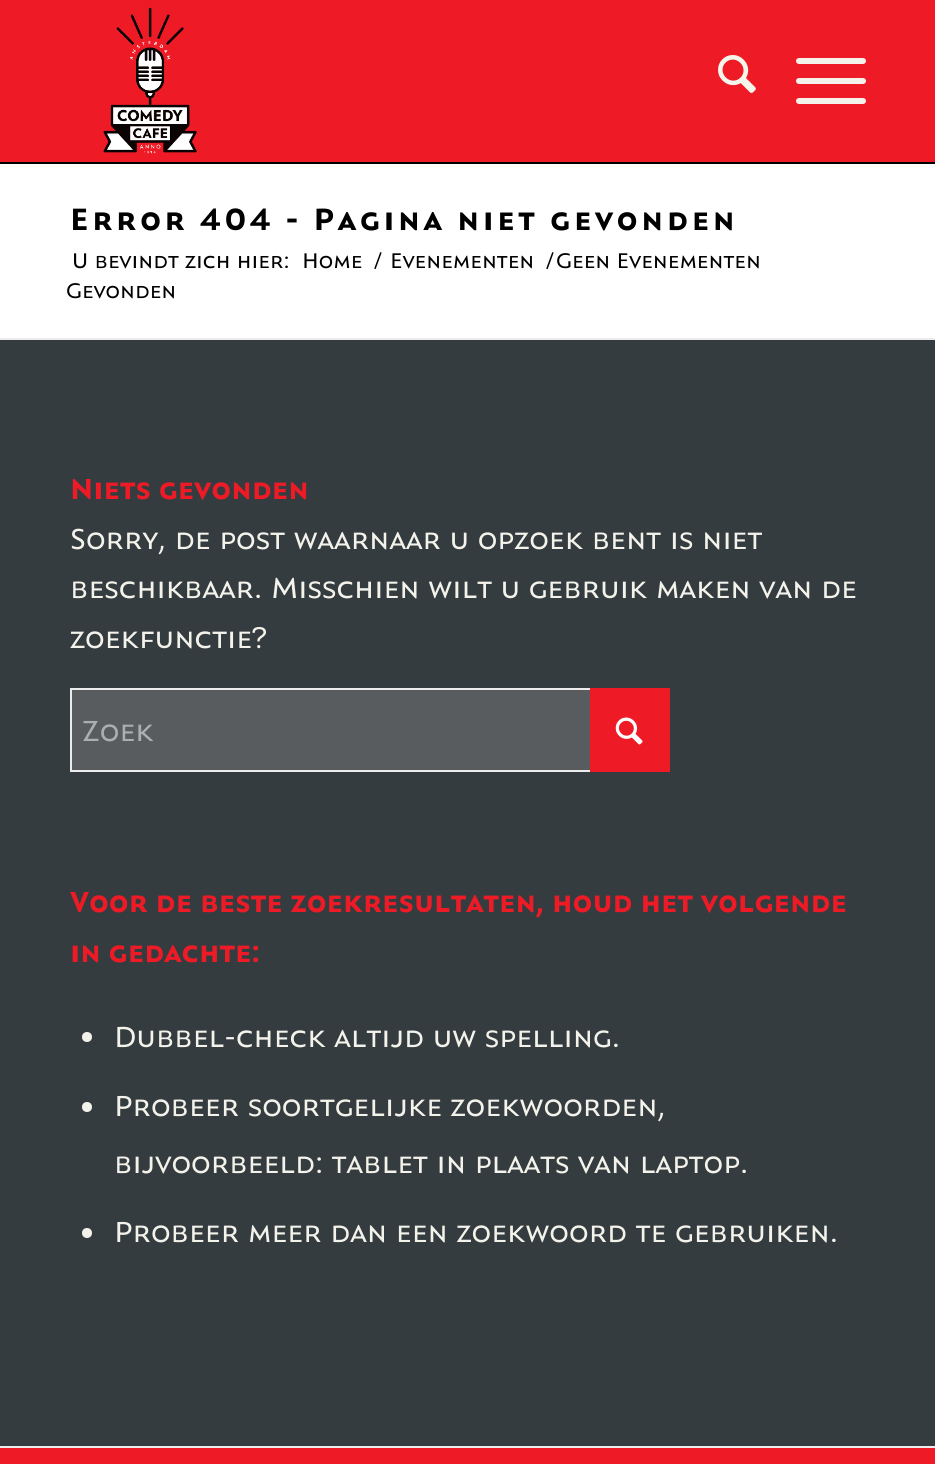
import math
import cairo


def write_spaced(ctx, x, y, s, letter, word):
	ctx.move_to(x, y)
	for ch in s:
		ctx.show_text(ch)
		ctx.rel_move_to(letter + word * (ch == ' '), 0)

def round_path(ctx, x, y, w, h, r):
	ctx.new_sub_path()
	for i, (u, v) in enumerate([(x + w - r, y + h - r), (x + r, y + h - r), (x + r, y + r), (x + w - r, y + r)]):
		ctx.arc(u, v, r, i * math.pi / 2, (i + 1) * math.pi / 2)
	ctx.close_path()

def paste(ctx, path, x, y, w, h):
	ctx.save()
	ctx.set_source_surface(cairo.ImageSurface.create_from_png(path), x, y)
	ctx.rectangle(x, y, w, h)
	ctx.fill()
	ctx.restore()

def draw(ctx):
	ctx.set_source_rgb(0.933, 0.106, 0.149)
	ctx.paint()
	ctx.set_source_rgb(0, 0, 0)
	ctx.rectangle(0, 162, 935, 2)
	ctx.fill()
	paste(ctx, 'media/1.png', 103, 7, 94, 147)
	paste(ctx, 'media/2.png', 718, 55, 38, 38)
	ctx.set_source_rgb(0.957, 0.953, 0.918)
	round_path(ctx, 796, 78, 70, 6, 3)
	ctx.fill()
	round_path(ctx, 796, 58, 70, 6, 3)
	ctx.fill()
	round_path(ctx, 796, 98, 70, 6, 3)
	ctx.fill()
	ctx.set_source_rgb(1, 1, 1)
	ctx.rectangle(0, 164, 935, 174)
	ctx.fill()
	ctx.select_font_face('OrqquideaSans', cairo.FONT_SLANT_NORMAL, cairo.FONT_WEIGHT_BOLD)
	ctx.set_font_size(32)
	ctx.set_source_rgb(0, 0, 0)
	write_spaced(ctx, 70, 230, 'Error 404 - Pagina niet gevonden', 3.5, 0)
	ctx.select_font_face('OrqquideaSans')
	ctx.set_font_size(22)
	for x, y, s in [
		(72, 268, 'U bevindt zich hier:'),
		(302, 268, 'Home'),
		(374, 268, '/'),
		(390, 268, 'Evenementen'),
		(546, 268, '/'),
		(556, 268, 'Geen Evenementen'),
		(66, 298, 'Gevonden'),
	]:
		ctx.move_to(x, y)
		ctx.show_text(s)
	ctx.set_source_rgb(0.208, 0.235, 0.251)
	ctx.rectangle(0, 340, 935, 1106)
	ctx.fill()
	ctx.set_source_rgb(0.922, 0.922, 0.922)
	ctx.rectangle(0, 338, 935, 2)
	ctx.fill()
	ctx.select_font_face('OrqquideaSans', cairo.FONT_SLANT_NORMAL, cairo.FONT_WEIGHT_BOLD)
	ctx.set_font_size(30)
	ctx.set_source_rgb(0.933, 0.106, 0.149)
	ctx.move_to(70, 499)
	ctx.show_text('Niets gevonden')
	ctx.select_font_face('OrqquideaSans')
	ctx.set_source_rgb(0.957, 0.953, 0.918)
	for x, y, s in [
		(70, 549, 'Sorry, de post waarnaar u opzoek bent is niet'),
		(70, 598, 'beschikbaar. Misschien wilt u gebruik maken van de'),
		(70, 648, 'zoekfunctie?'),
	]:
		ctx.move_to(x, y)
		ctx.show_text(s)
	ctx.set_source_rgb(0.349, 0.361, 0.369)
	ctx.rectangle(72, 690, 518, 80)
	ctx.fill()
	ctx.rectangle(71, 689, 598, 82)
	ctx.set_source_rgb(0.922, 0.922, 0.922)
	ctx.stroke()
	ctx.set_source_rgb(0.933, 0.106, 0.149)
	ctx.rectangle(590, 688, 80, 84)
	ctx.fill()
	ctx.set_source_rgb(0.675, 0.682, 0.686)
	ctx.move_to(82, 741)
	ctx.show_text('Zoek')
	paste(ctx, 'media/3.png', 615, 717, 28, 28)
	ctx.select_font_face('OrqquideaSans', cairo.FONT_SLANT_NORMAL, cairo.FONT_WEIGHT_BOLD)
	ctx.set_source_rgb(0.933, 0.106, 0.149)
	ctx.move_to(70, 912)
	ctx.show_text('Voor de beste zoekresultaten, houd het volgende')
	ctx.move_to(70, 962)
	ctx.show_text('in gedachte:')
	ctx.set_source_rgb(0.957, 0.953, 0.918)
	ctx.new_path()
	ctx.arc(87, 1037, 5, 0, 2 * math.pi)
	ctx.fill()
	ctx.select_font_face('OrqquideaSans')
	ctx.move_to(114, 1047)
	ctx.show_text('Dubbel-check altijd uw spelling.')
	ctx.new_path()
	ctx.arc(87, 1107, 5, 0, 2 * math.pi)
	ctx.fill()
	ctx.move_to(114, 1116)
	ctx.show_text('Probeer soortgelijke zoekwoorden,')
	ctx.move_to(114, 1173)
	ctx.show_text('bijvoorbeeld: tablet in plaats van laptop.')
	ctx.new_path()
	ctx.arc(87, 1233, 5, 0, 2 * math.pi)
	ctx.fill()
	ctx.move_to(114, 1242)
	ctx.show_text('Probeer meer dan een zoekwoord te gebruiken.')
	ctx.set_source_rgb(0.922, 0.922, 0.922)
	ctx.rectangle(0, 1446, 935, 2)
	ctx.fill()


surface = cairo.ImageSurface(cairo.FORMAT_RGB24, 935, 1464)
ctx = cairo.Context(surface)
options = cairo.FontOptions()
options.set_hint_metrics(cairo.HINT_METRICS_OFF)
options.set_hint_style(cairo.HINT_STYLE_NONE)
ctx.set_font_options(options)
ctx.set_miter_limit(4)
draw(ctx)
surface.write_to_png('image.png')
